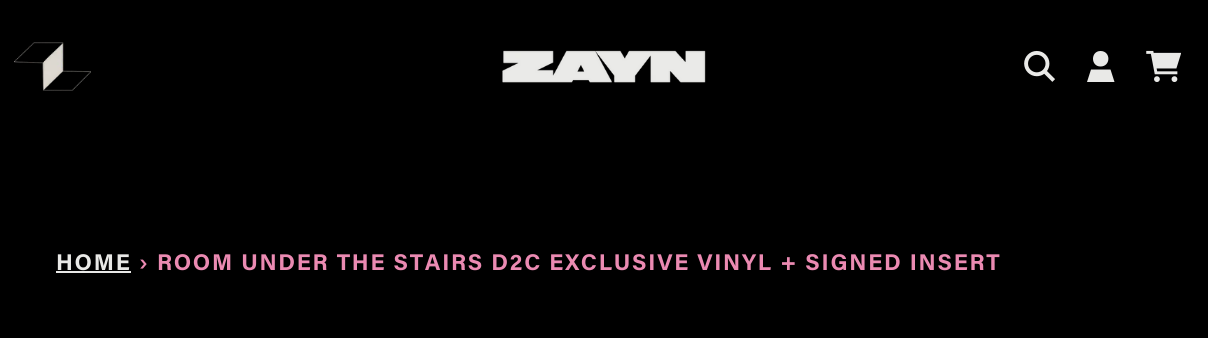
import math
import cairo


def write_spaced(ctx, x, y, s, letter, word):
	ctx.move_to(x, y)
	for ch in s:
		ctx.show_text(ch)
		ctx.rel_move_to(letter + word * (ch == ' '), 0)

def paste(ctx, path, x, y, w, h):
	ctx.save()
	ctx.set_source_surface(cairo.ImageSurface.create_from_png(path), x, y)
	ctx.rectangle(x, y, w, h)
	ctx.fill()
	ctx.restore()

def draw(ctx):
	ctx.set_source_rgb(0, 0, 0)
	ctx.paint()
	paste(ctx, 'media/1.png', 14, 42, 77, 49)
	paste(ctx, 'media/2.png', 502, 50, 204, 33)
	paste(ctx, 'media/3.png', 1024, 50, 31, 32)
	ctx.set_source_rgb(0.914, 0.914, 0.906)
	ctx.new_path()
	ctx.move_to(1100.5, 66.5)
	ctx.curve_to(1111, 66.5, 1111, 51, 1100.5, 51)
	ctx.curve_to(1090.5, 51, 1090.5, 66.5, 1100.5, 66.5)
	ctx.close_path()
	ctx.move_to(1114.5, 82)
	ctx.line_to(1110.5, 69.5)
	ctx.line_to(1091, 69.5)
	ctx.line_to(1087, 82)
	ctx.close_path()
	ctx.fill()
	paste(ctx, 'media/4.png', 1146, 50, 35, 32)
	ctx.select_font_face('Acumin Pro', cairo.FONT_SLANT_NORMAL, cairo.FONT_WEIGHT_BOLD)
	ctx.set_font_size(22.75)
	write_spaced(ctx, 56, 270, 'HOME', 1.75, 0)
	ctx.rectangle(56, 271, 75, 2)
	ctx.fill()
	ctx.set_source_rgb(0.918, 0.541, 0.698)
	write_spaced(ctx, 139, 270, '› ROOM UNDER THE STAIRS D2C EXCLUSIVE VINYL + SIGNED INSERT', 1.75, 0)


surface = cairo.ImageSurface(cairo.FORMAT_RGB24, 1208, 338)
ctx = cairo.Context(surface)
options = cairo.FontOptions()
options.set_hint_metrics(cairo.HINT_METRICS_OFF)
options.set_hint_style(cairo.HINT_STYLE_NONE)
ctx.set_font_options(options)
ctx.set_miter_limit(4)
draw(ctx)
surface.write_to_png('image.png')
